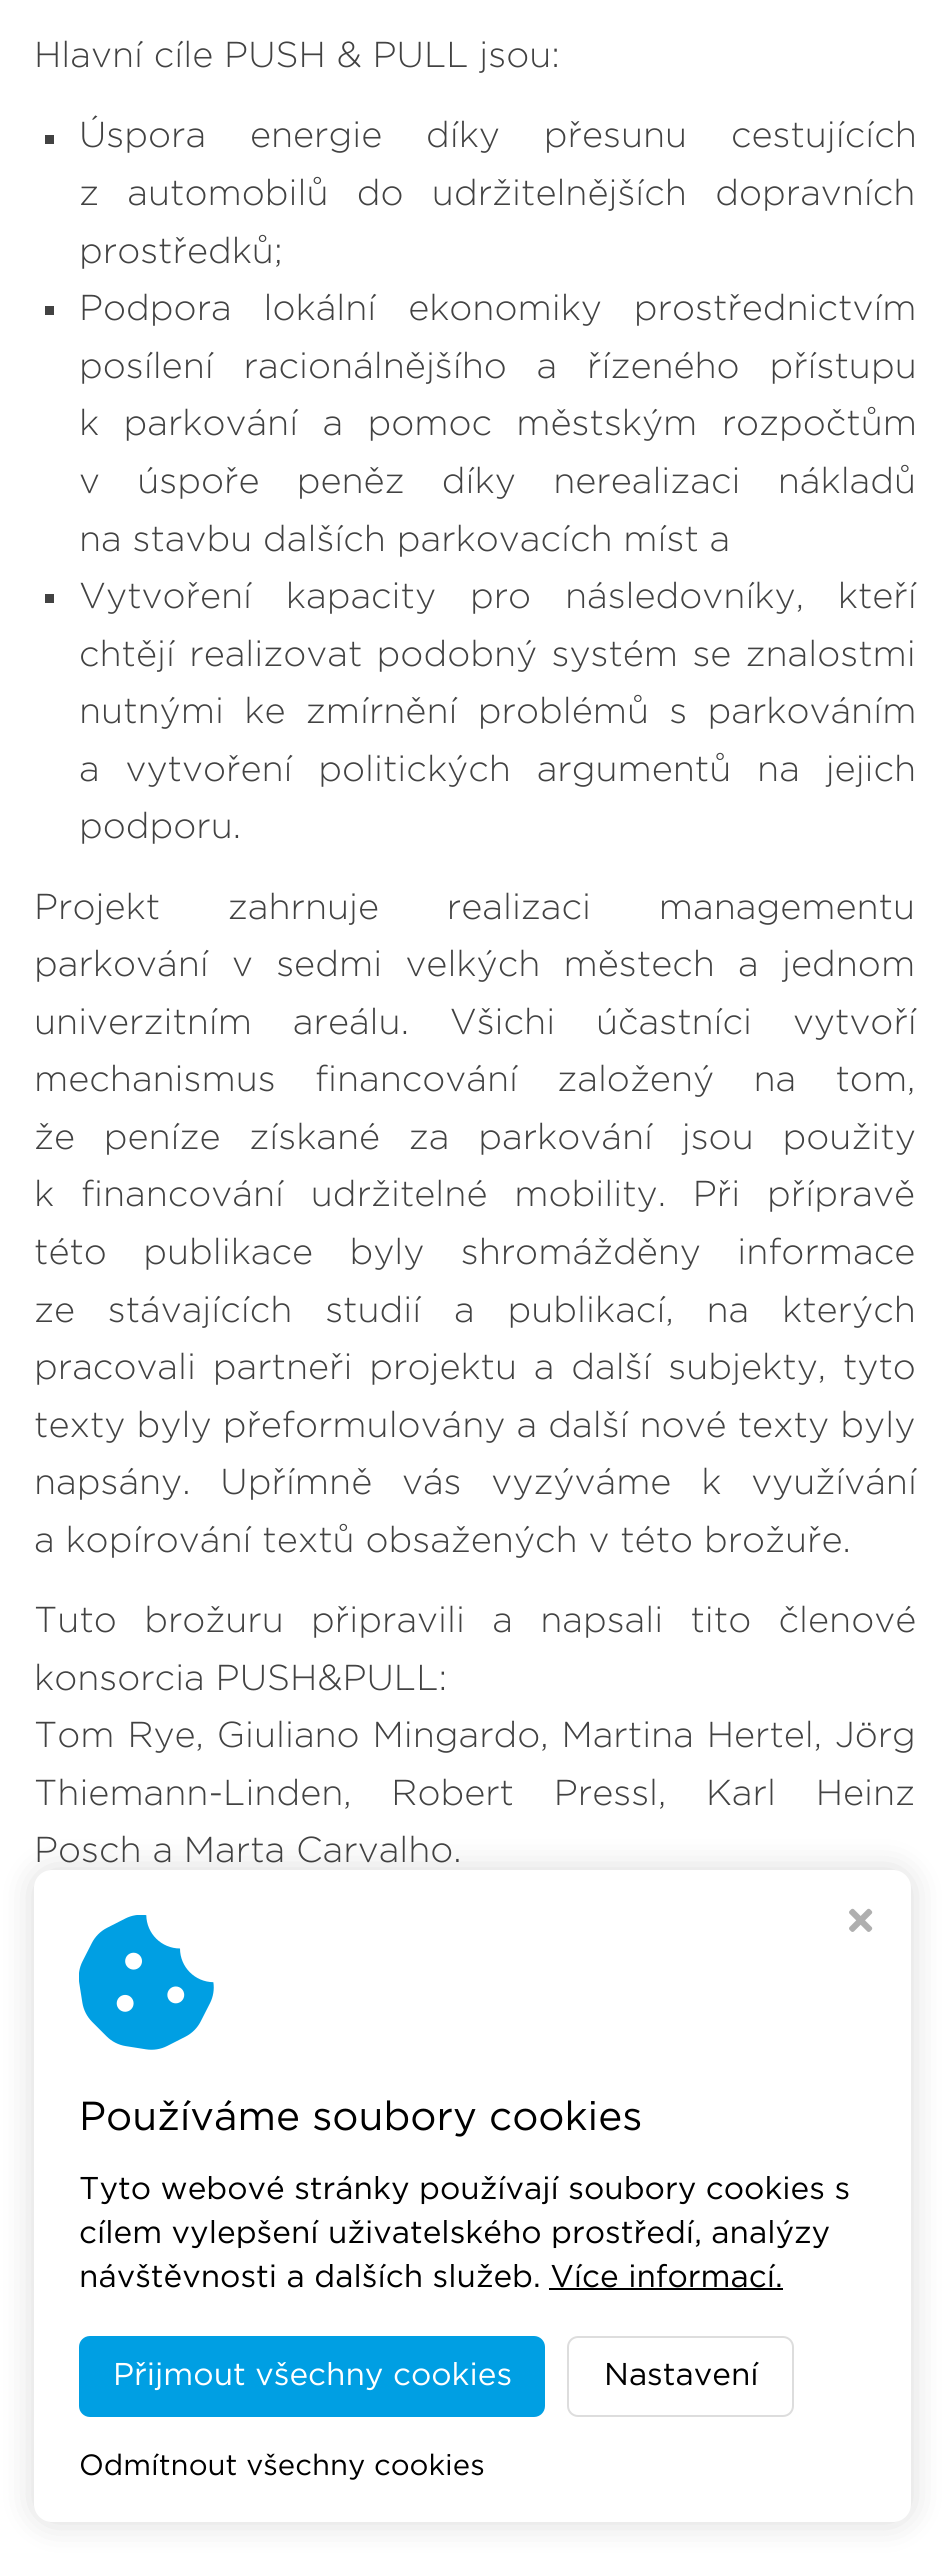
import math
import cairo


def write_spaced(ctx, x, y, s, letter, word):
	ctx.move_to(x, y)
	for ch in s:
		ctx.show_text(ch)
		ctx.rel_move_to(letter + word * (ch == ' '), 0)

def round_path(ctx, x, y, w, h, r):
	ctx.new_sub_path()
	for i, (u, v) in enumerate([(x + w - r, y + h - r), (x + r, y + h - r), (x + r, y + r), (x + w - r, y + r)]):
		ctx.arc(u, v, r, i * math.pi / 2, (i + 1) * math.pi / 2)
	ctx.close_path()

def blur_box(ctx, x, y, w, h, r, blur, alpha):
	ctx.push_group_with_content(cairo.CONTENT_ALPHA)
	ctx.set_operator(cairo.OPERATOR_SOURCE)
	for i in range(15, -16, -2):
		e = blur * i / 6
		if min(w, h) + 2 * e > 0:
			ctx.set_source_rgba(0, 0, 0, alpha * math.erfc((i - 1) / 8.5) / 2)
			round_path(ctx, x - e, y - e, w + 2 * e, h + 2 * e, max(0, min(r + e + blur * .6, min(w, h) / 2 + e)))
			ctx.fill()
	ctx.mask(ctx.pop_group())

def paste(ctx, path, x, y, w, h):
	ctx.save()
	ctx.set_source_surface(cairo.ImageSurface.create_from_png(path), x, y)
	ctx.rectangle(x, y, w, h)
	ctx.fill()
	ctx.restore()

def draw(ctx):
	ctx.set_source_rgb(1, 1, 1)
	ctx.paint()
	ctx.select_font_face('Gotham Light')
	ctx.set_font_size(36)
	ctx.set_source_rgb(0.259, 0.259, 0.259)
	ctx.move_to(34, 67)
	ctx.show_text('Hlavní cíle PUSH & PULL jsou:')
	ctx.rectangle(45, 135, 9, 9)
	ctx.fill()
	write_spaced(ctx, 79, 147, 'Úspora energie díky přesunu cestujících', 0, 33)
	write_spaced(ctx, 79, 205, 'z automobilů do udržitelnějších dopravních', 0, 17.5)
	ctx.move_to(79, 263)
	ctx.show_text('prostředků;')
	ctx.rectangle(45, 306, 9, 9)
	ctx.fill()
	write_spaced(ctx, 79, 320, 'Podpora lokální ekonomiky prostřednictvím', 0, 21)
	write_spaced(ctx, 79, 378, 'posílení racionálnějšího a řízeného přístupu', 0, 19)
	write_spaced(ctx, 79, 435, 'k parkování a pomoc městským rozpočtům', 0, 13.5)
	write_spaced(ctx, 79, 493, 'v úspoře peněz díky nerealizaci nákladů', 0, 26.5)
	ctx.move_to(79, 551)
	ctx.show_text('na stavbu dalších parkovacích míst a')
	ctx.rectangle(45, 594, 9, 9)
	ctx.fill()
	write_spaced(ctx, 79, 608, 'Vytvoření kapacity pro následovníky, kteří', 0, 23)
	write_spaced(ctx, 79, 666, 'chtějí realizovat podobný systém se znalostmi', 0, 3.5)
	write_spaced(ctx, 79, 723, 'nutnými ke zmírnění problémů s parkováním', 0, 9.5)
	write_spaced(ctx, 79, 781, 'a vytvoření politických argumentů na jejich', 0, 15)
	ctx.move_to(79, 838)
	ctx.show_text('podporu.')
	write_spaced(ctx, 34, 919, 'Projekt zahrnuje realizaci managementu', 0, 57)
	write_spaced(ctx, 34, 976, 'parkování v sedmi velkých městech a jednom', 0, 12.5)
	write_spaced(ctx, 34, 1034, 'univerzitním areálu. Všichi účastníci vytvoří', 0, 30)
	write_spaced(ctx, 34, 1091, 'mechanismus financování založený na tom,', 0, 28.5)
	write_spaced(ctx, 34, 1149, 'že peníze získané za parkování jsou použity', 0, 18)
	write_spaced(ctx, 34, 1206, 'k financování udržitelné mobility. Při přípravě', 0, 16)
	write_spaced(ctx, 34, 1264, 'této publikace byly shromážděny informace', 0, 25.5)
	write_spaced(ctx, 34, 1322, 'ze stávajících studií a publikací, na kterých', 0, 22)
	write_spaced(ctx, 34, 1379, 'pracovali partneři projektu a další subjekty, tyto', 0, 6)
	write_spaced(ctx, 34, 1437, 'texty byly přeformulovány a další nové texty byly', 0, 0.25)
	write_spaced(ctx, 34, 1494, 'napsány. Upřímně vás vyzýváme k využívání', 0, 19)
	ctx.move_to(34, 1552)
	ctx.show_text('a kopírování textů obsažených v této brožuře.')
	write_spaced(ctx, 34, 1632, 'Tuto brožuru připravili a napsali tito členové', 0, 16.5)
	ctx.move_to(34, 1690)
	ctx.show_text('konsorcia PUSH&PULL:')
	write_spaced(ctx, 34, 1747, 'Tom Rye, Giuliano Mingardo, Martina Hertel, Jörg', 0, 2)
	write_spaced(ctx, 34, 1805, 'Thiemann-Linden, Robert Pressl, Karl Heinz', 0, 29)
	ctx.move_to(34, 1862)
	ctx.show_text('Posch a Marta Carvalho.')
	ctx.set_source_rgb(0, 0, 0)
	blur_box(ctx, 34, 1870, 877, 652, 18, 17, 0.15)
	ctx.set_source_rgb(1, 1, 1)
	round_path(ctx, 34, 1870, 877, 652, 18)
	ctx.fill()
	paste(ctx, 'media/1.png', 79, 1915, 135, 135)
	paste(ctx, 'media/2.png', 849, 1908, 24, 24)
	ctx.select_font_face('Gotham')
	ctx.set_font_size(40.5)
	ctx.set_source_rgb(0, 0, 0)
	ctx.move_to(79, 2130)
	ctx.show_text('Používáme soubory cookies')
	ctx.set_font_size(31.5)
	for x, y, s in [
		(79, 2199, 'Tyto webové stránky používají soubory cookies s'),
		(79, 2243, 'cílem vylepšení uživatelského prostředí, analýzy'),
		(79, 2287, 'návštěvnosti a dalších služeb. Více informací.'),
	]:
		ctx.move_to(x, y)
		ctx.show_text(s)
	ctx.rectangle(549, 2288, 234, 2)
	ctx.fill()
	ctx.set_source_rgb(0, 0.624, 0.89)
	round_path(ctx, 79, 2336, 466, 81, 11)
	ctx.fill()
	ctx.set_source_rgb(1, 1, 1)
	ctx.move_to(113, 2385)
	ctx.show_text('Přijmout všechny cookies')
	round_path(ctx, 568, 2337, 225, 79, 10)
	ctx.set_source_rgb(0.867, 0.867, 0.867)
	ctx.stroke()
	ctx.set_source_rgb(0, 0, 0)
	ctx.move_to(604, 2385)
	ctx.show_text('Nastavení')
	ctx.set_font_size(29.25)
	ctx.move_to(79, 2475)
	ctx.show_text('Odmítnout všechny cookies')


surface = cairo.ImageSurface(cairo.FORMAT_RGB24, 948, 2556)
ctx = cairo.Context(surface)
options = cairo.FontOptions()
options.set_hint_metrics(cairo.HINT_METRICS_OFF)
options.set_hint_style(cairo.HINT_STYLE_NONE)
ctx.set_font_options(options)
ctx.set_miter_limit(4)
draw(ctx)
surface.write_to_png('image.png')
